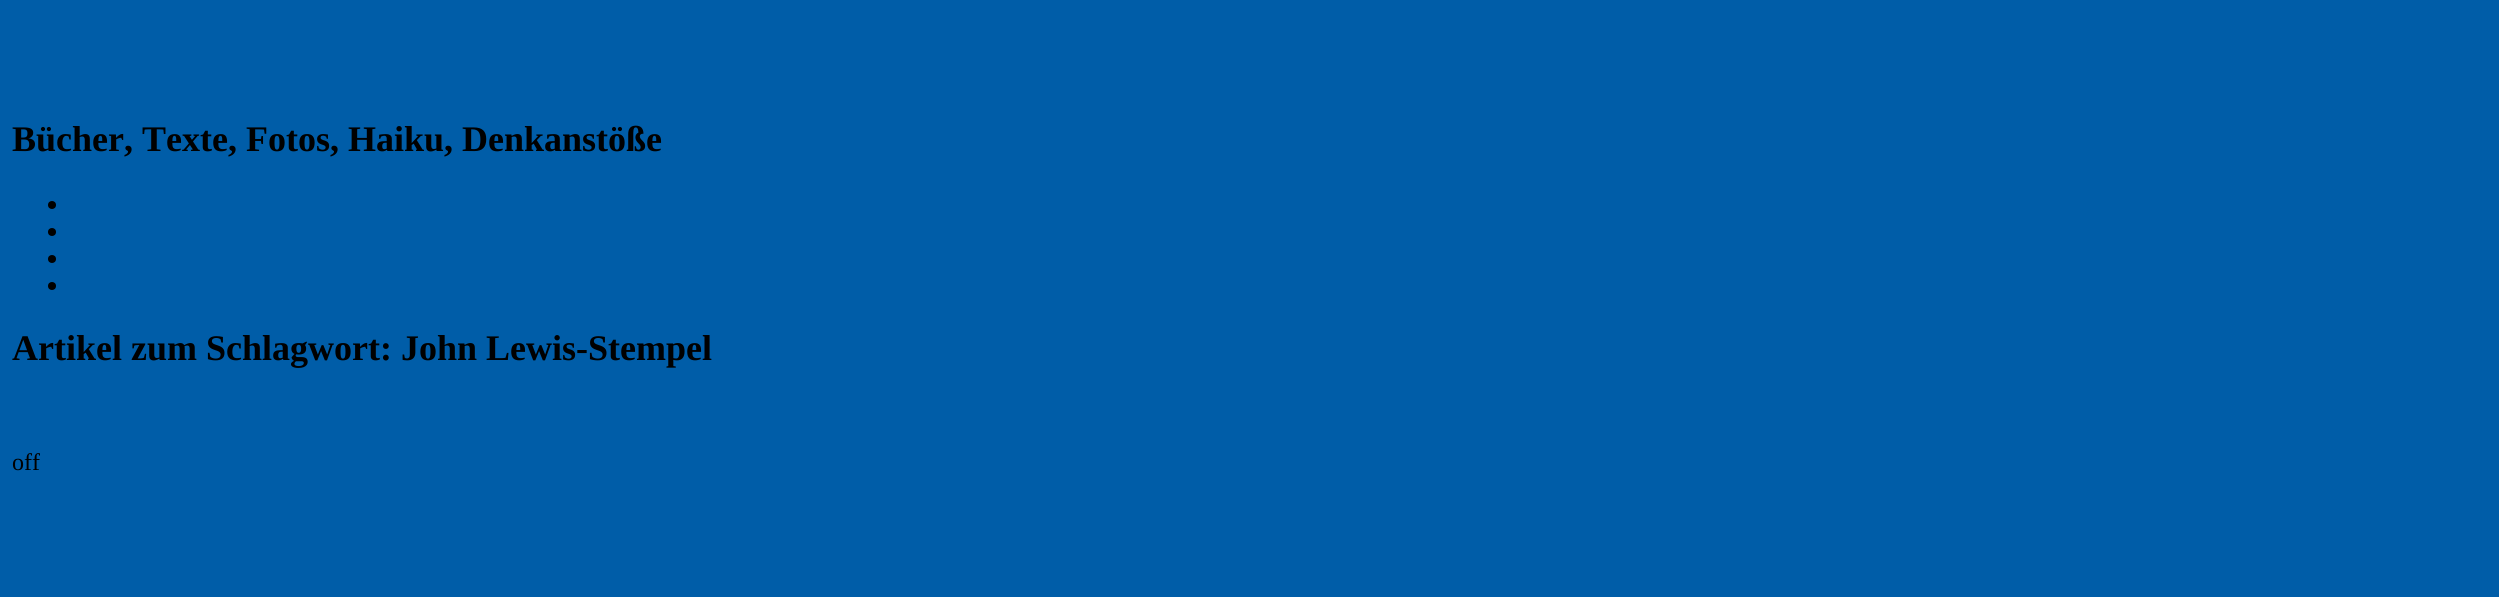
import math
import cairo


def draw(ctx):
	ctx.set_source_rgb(0, 0.365, 0.659)
	ctx.paint()
	ctx.select_font_face('Liberation Serif', cairo.FONT_SLANT_NORMAL, cairo.FONT_WEIGHT_BOLD)
	ctx.set_font_size(36)
	ctx.set_source_rgb(0, 0, 0)
	ctx.move_to(12, 151)
	ctx.show_text('Bücher, Texte, Fotos, Haiku, Denkanstöße')
	ctx.new_path()
	ctx.arc(52, 205, 4, 0, 2 * math.pi)
	ctx.fill()
	ctx.arc(52, 232, 4, 0, 2 * math.pi)
	ctx.fill()
	ctx.arc(52, 259, 4, 0, 2 * math.pi)
	ctx.fill()
	ctx.arc(52, 286, 4, 0, 2 * math.pi)
	ctx.fill()
	ctx.move_to(12, 360)
	ctx.show_text('Artikel zum Schlagwort: John Lewis-Stempel')
	ctx.select_font_face('Liberation Serif')
	ctx.set_font_size(24)
	ctx.move_to(12, 470)
	ctx.show_text('off')


surface = cairo.ImageSurface(cairo.FORMAT_RGB24, 2499, 597)
ctx = cairo.Context(surface)
options = cairo.FontOptions()
options.set_hint_metrics(cairo.HINT_METRICS_OFF)
options.set_hint_style(cairo.HINT_STYLE_NONE)
ctx.set_font_options(options)
ctx.set_miter_limit(4)
draw(ctx)
surface.write_to_png('image.png')
